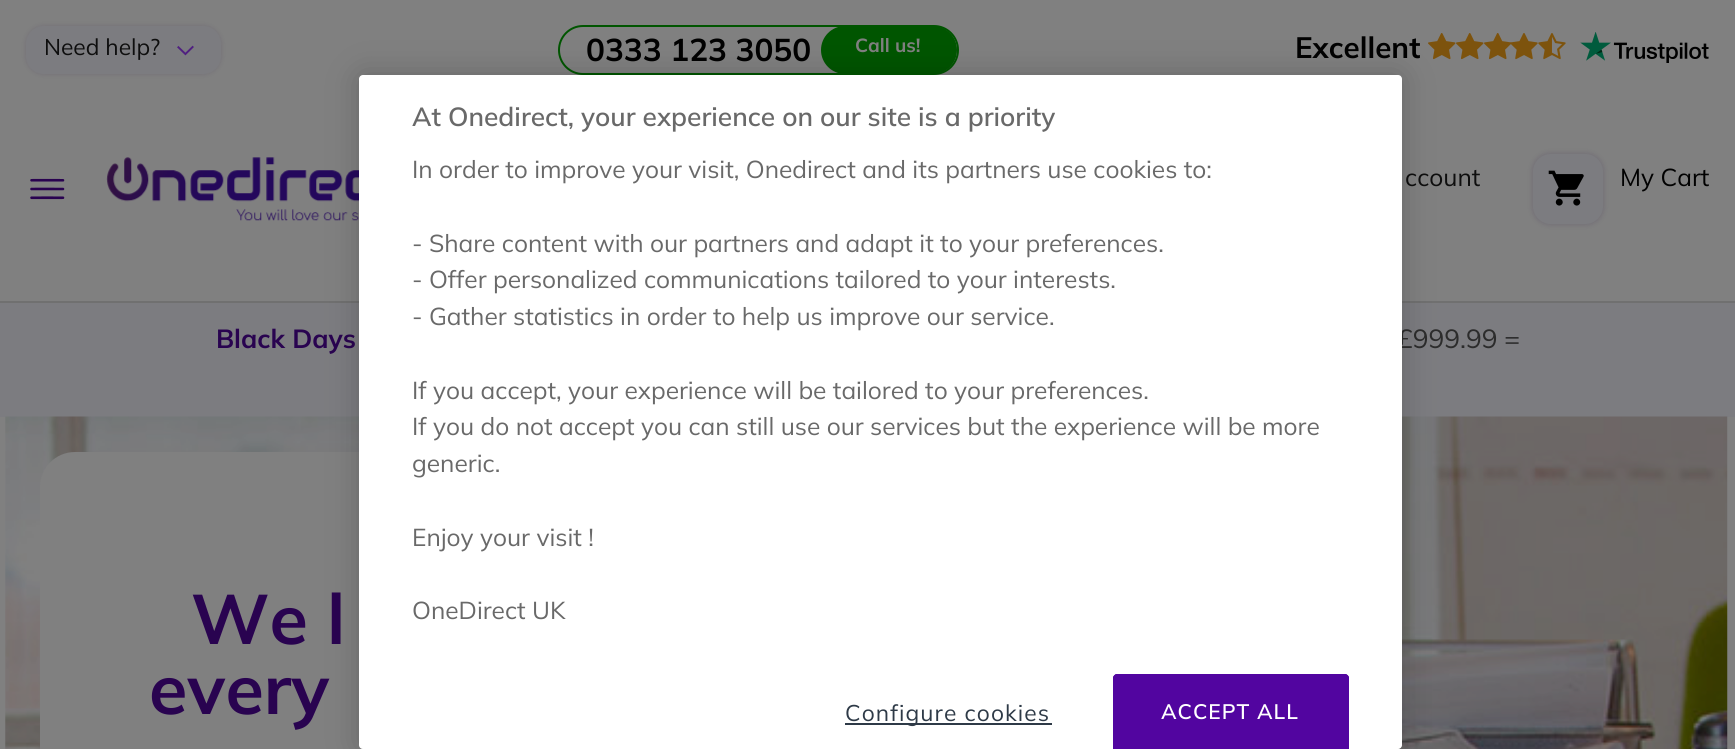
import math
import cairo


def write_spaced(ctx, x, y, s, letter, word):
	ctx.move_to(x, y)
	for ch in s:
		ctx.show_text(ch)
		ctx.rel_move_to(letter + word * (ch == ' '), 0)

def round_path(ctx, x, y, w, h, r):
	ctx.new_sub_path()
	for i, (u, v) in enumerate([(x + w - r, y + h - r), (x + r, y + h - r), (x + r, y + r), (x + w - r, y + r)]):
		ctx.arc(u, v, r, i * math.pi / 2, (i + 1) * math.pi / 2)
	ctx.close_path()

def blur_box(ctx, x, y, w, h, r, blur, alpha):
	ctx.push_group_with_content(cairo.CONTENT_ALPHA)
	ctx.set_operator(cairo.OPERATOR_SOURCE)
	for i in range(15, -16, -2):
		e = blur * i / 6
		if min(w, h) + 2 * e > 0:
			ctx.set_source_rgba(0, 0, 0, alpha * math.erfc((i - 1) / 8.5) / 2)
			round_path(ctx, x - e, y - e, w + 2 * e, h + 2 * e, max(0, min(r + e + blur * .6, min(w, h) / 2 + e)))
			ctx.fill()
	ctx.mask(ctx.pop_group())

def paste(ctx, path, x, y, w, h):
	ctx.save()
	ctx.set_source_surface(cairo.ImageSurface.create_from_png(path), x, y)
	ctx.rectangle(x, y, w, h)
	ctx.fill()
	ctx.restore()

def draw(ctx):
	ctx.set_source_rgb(0.502, 0.502, 0.502)
	ctx.paint()
	ctx.set_source_rgb(0.439, 0.439, 0.439)
	ctx.rectangle(0, 301, 1735, 2)
	ctx.fill()
	ctx.set_source_rgb(0.114, 0.008, 0.22)
	blur_box(ctx, 25, 25, 197, 50, 19, 2, 0.1)
	ctx.set_source_rgb(0.486, 0.486, 0.502)
	round_path(ctx, 26, 26, 195, 48, 18)
	ctx.fill()
	ctx.select_font_face('Mulish')
	ctx.set_font_size(22.75)
	ctx.set_source_rgb(0.055, 0.055, 0.055)
	ctx.move_to(44, 55)
	ctx.show_text('Need help?')
	paste(ctx, 'media/1.png', 177, 45, 17, 11)
	round_path(ctx, 559, 26, 399, 48, 24)
	ctx.set_source_rgb(0, 0.333, 0)
	ctx.stroke()
	ctx.select_font_face('Mulish', cairo.FONT_SLANT_NORMAL, cairo.FONT_WEIGHT_BOLD)
	ctx.set_font_size(31.5)
	ctx.set_source_rgb(0.004, 0.004, 0.004)
	ctx.move_to(586, 61)
	ctx.show_text('0333 123 3050')
	ctx.set_source_rgb(0, 0.333, 0)
	round_path(ctx, 821, 26, 136, 48, 24)
	ctx.fill()
	ctx.set_font_size(19)
	ctx.set_source_rgb(0.502, 0.502, 0.502)
	ctx.move_to(855, 52)
	ctx.show_text('Call us!')
	ctx.set_font_size(29.5)
	ctx.set_source_rgb(0.004, 0.004, 0.004)
	ctx.move_to(1295, 58)
	ctx.show_text('Excellent')
	paste(ctx, 'media/2.png', 1428, 33, 28, 27)
	paste(ctx, 'media/2.png', 1456, 33, 28, 27)
	paste(ctx, 'media/2.png', 1484, 33, 28, 27)
	paste(ctx, 'media/3.png', 1510, 33, 28, 27)
	paste(ctx, 'media/4.png', 1538, 33, 28, 27)
	paste(ctx, 'media/5.png', 1580, 32, 129, 31)
	paste(ctx, 'media/6.png', 30, 178, 35, 22)
	paste(ctx, 'media/7.png', 106, 157, 253, 64)
	ctx.select_font_face('Mulish')
	ctx.set_font_size(24.5)
	ctx.set_source_rgb(0.055, 0.055, 0.055)
	ctx.move_to(1405, 186)
	ctx.show_text('ccount')
	ctx.set_source_rgb(0.114, 0.008, 0.22)
	blur_box(ctx, 1531, 152, 74, 74, 19, 2, 0.1)
	ctx.set_source_rgb(0.486, 0.486, 0.502)
	round_path(ctx, 1533, 154, 70, 70, 18)
	ctx.fill()
	paste(ctx, 'media/8.png', 1548, 170, 36, 36)
	ctx.set_source_rgb(0.004, 0.004, 0.004)
	ctx.move_to(1620, 186)
	ctx.show_text('My Cart')
	ctx.set_source_rgb(0.486, 0.486, 0.502)
	ctx.rectangle(0, 303, 1735, 114)
	ctx.fill()
	ctx.select_font_face('Mulish', cairo.FONT_SLANT_NORMAL, cairo.FONT_WEIGHT_BOLD)
	ctx.set_font_size(26.25)
	ctx.set_source_rgb(0.161, 0.012, 0.314)
	ctx.move_to(216, 348)
	ctx.show_text('Black Days')
	ctx.select_font_face('Mulish')
	ctx.set_source_rgb(0.173, 0.173, 0.173)
	ctx.move_to(1397, 348)
	ctx.show_text('£999.99 =')
	paste(ctx, 'media/9.png', 5, 416, 1723, 333)
	ctx.set_source_rgb(0.502, 0.502, 0.502)
	round_path(ctx, 40, 452, 658, 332, 35)
	ctx.fill()
	ctx.select_font_face('Mulish', cairo.FONT_SLANT_NORMAL, cairo.FONT_WEIGHT_BOLD)
	ctx.set_font_size(70)
	ctx.set_source_rgb(0.161, 0.012, 0.314)
	ctx.move_to(191, 644)
	ctx.show_text('We l')
	ctx.move_to(149, 714)
	ctx.show_text('every')
	ctx.set_source_rgb(0, 0, 0)
	blur_box(ctx, 359, 75, 1043, 674, 4, 16, 0.2)
	ctx.set_source_rgb(1, 1, 1)
	round_path(ctx, 359, 75, 1043, 674, 4)
	ctx.fill()
	ctx.select_font_face('Mulish SemiBold')
	ctx.set_font_size(26.25)
	ctx.set_source_rgb(0.412, 0.412, 0.412)
	ctx.move_to(412, 126)
	ctx.show_text('At Onedirect, your experience on our site is a priority')
	ctx.select_font_face('Mulish')
	ctx.set_font_size(24.5)
	for x, y, s in [
		(412, 178, 'In order to improve your visit, Onedirect and its partners use cookies to:'),
		(412, 252, '- Share content with our partners and adapt it to your preferences.'),
		(412, 288, '- Offer personalized communications tailored to your interests.'),
		(412, 325, '- Gather statistics in order to help us improve our service.'),
		(412, 399, 'If you accept, your experience will be tailored to your preferences.'),
		(412, 435, 'If you do not accept you can still use our services but the experience will be more'),
		(412, 472, 'generic.'),
		(412, 546, 'Enjoy your visit !'),
		(412, 619, 'OneDirect UK'),
	]:
		ctx.move_to(x, y)
		ctx.show_text(s)
	ctx.set_source_rgb(0.18, 0.227, 0.278)
	ctx.rectangle(845, 723, 207, 2)
	ctx.fill()
	ctx.set_font_size(22.75)
	write_spaced(ctx, 845, 721, 'Configure cookies', 1.1, 0)
	ctx.set_source_rgb(0.322, 0.02, 0.627)
	ctx.new_path()
	ctx.move_to(1117, 674)
	ctx.line_to(1345, 674)
	ctx.curve_to(1347, 674, 1349, 676, 1349, 678)
	ctx.line_to(1349, 749)
	ctx.line_to(1113, 749)
	ctx.line_to(1113, 678)
	ctx.curve_to(1113, 676, 1115, 674, 1117, 674)
	ctx.close_path()
	ctx.fill()
	ctx.new_path()
	ctx.move_to(1117, 674)
	ctx.curve_to(1115, 674, 1113, 676, 1113, 678)
	ctx.line_to(1113, 749)
	ctx.line_to(1115, 749)
	ctx.line_to(1115, 678)
	ctx.curve_to(1115, 677, 1116, 676, 1117, 676)
	ctx.line_to(1345, 676)
	ctx.curve_to(1346, 676, 1347, 677, 1347, 678)
	ctx.line_to(1347, 749)
	ctx.line_to(1349, 749)
	ctx.line_to(1349, 678)
	ctx.curve_to(1349, 676, 1347, 674, 1345, 674)
	ctx.close_path()
	ctx.fill()
	ctx.select_font_face('Mulish SemiBold')
	ctx.set_font_size(21)
	ctx.set_source_rgb(1, 1, 1)
	write_spaced(ctx, 1161, 719, 'ACCEPT ALL', 1, 0)


surface = cairo.ImageSurface(cairo.FORMAT_RGB24, 1735, 749)
ctx = cairo.Context(surface)
options = cairo.FontOptions()
options.set_hint_metrics(cairo.HINT_METRICS_OFF)
options.set_hint_style(cairo.HINT_STYLE_NONE)
ctx.set_font_options(options)
ctx.set_miter_limit(4)
draw(ctx)
surface.write_to_png('image.png')
